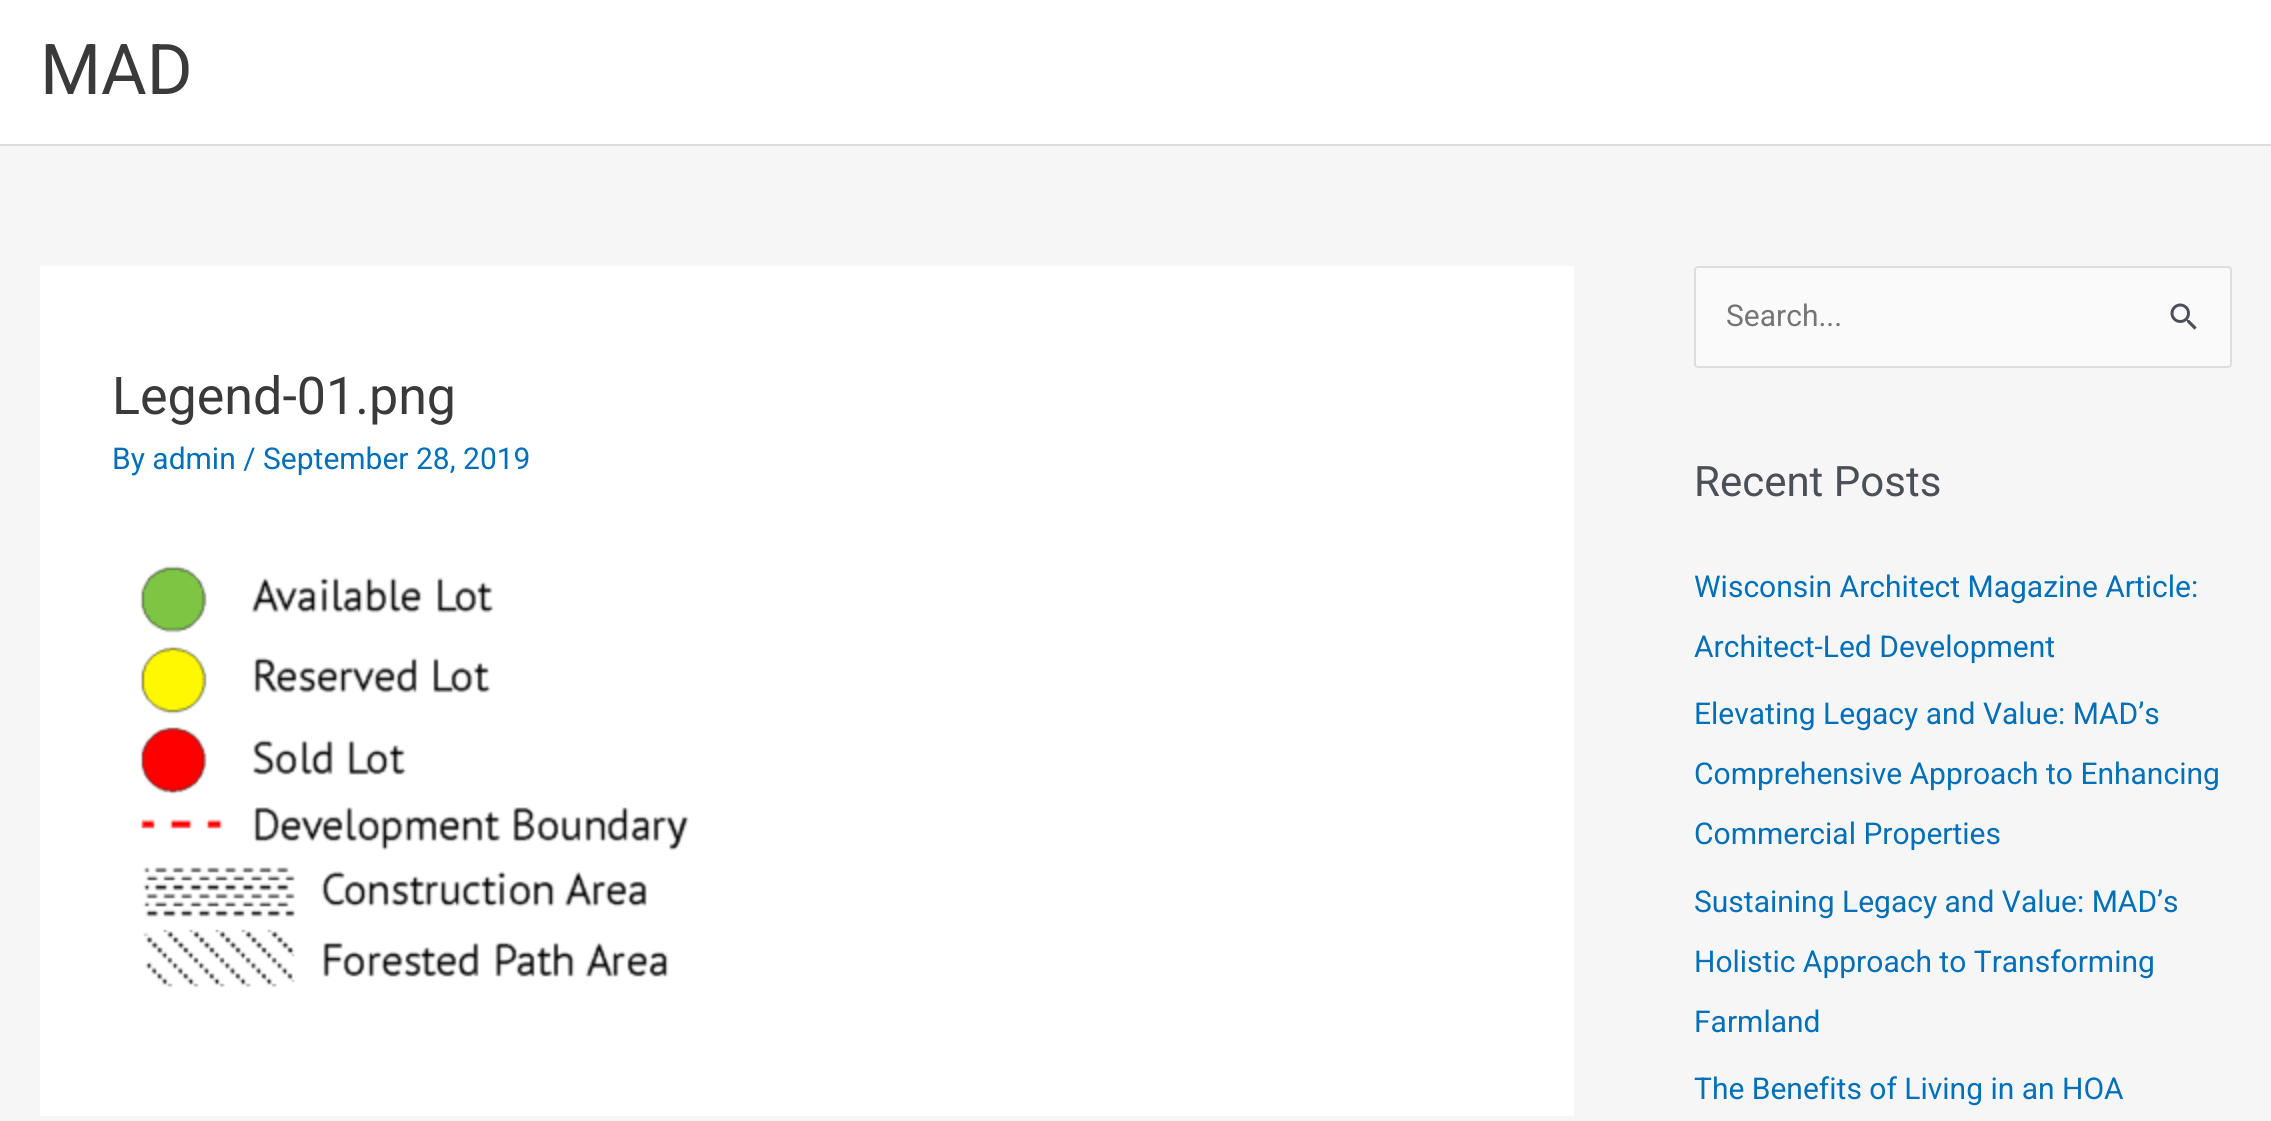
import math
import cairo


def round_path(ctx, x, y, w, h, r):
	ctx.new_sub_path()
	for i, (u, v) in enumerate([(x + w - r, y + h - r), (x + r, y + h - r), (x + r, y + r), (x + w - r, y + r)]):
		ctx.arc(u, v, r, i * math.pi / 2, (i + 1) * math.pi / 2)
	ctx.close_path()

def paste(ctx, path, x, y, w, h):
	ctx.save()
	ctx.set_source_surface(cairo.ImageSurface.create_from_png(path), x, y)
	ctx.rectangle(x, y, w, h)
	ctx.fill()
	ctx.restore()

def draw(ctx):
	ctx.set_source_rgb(0.961, 0.961, 0.961)
	ctx.paint()
	ctx.set_source_rgb(1, 1, 1)
	ctx.rectangle(0, 0, 2271, 144)
	ctx.fill()
	ctx.set_source_rgb(0.867, 0.867, 0.867)
	ctx.rectangle(0, 144, 2271, 2)
	ctx.fill()
	ctx.select_font_face('Roboto')
	ctx.set_font_size(70)
	ctx.set_source_rgb(0.227, 0.227, 0.227)
	ctx.move_to(40, 94)
	ctx.show_text('MAD')
	ctx.set_source_rgb(1, 1, 1)
	ctx.rectangle(40, 266, 1534, 850)
	ctx.fill()
	ctx.set_font_size(52)
	ctx.set_source_rgb(0.227, 0.227, 0.227)
	ctx.move_to(112, 414)
	ctx.show_text('Legend-01.png')
	ctx.set_font_size(30)
	ctx.set_source_rgb(0.004, 0.439, 0.725)
	ctx.move_to(112, 469)
	ctx.show_text('By admin / September 28, 2019')
	paste(ctx, 'media/1.png', 140, 565, 549, 423)
	ctx.set_source_rgb(0.98, 0.98, 0.98)
	round_path(ctx, 1695, 267, 536, 100, 3)
	ctx.fill_preserve()
	ctx.set_source_rgb(0.867, 0.867, 0.867)
	ctx.stroke()
	ctx.set_source_rgb(0.459, 0.459, 0.459)
	ctx.move_to(1726, 326)
	ctx.show_text('Search...')
	paste(ctx, 'media/2.png', 2170, 303, 27, 27)
	ctx.set_font_size(42)
	ctx.set_source_rgb(0.294, 0.31, 0.345)
	ctx.move_to(1694, 496)
	ctx.show_text('Recent Posts')
	ctx.set_font_size(30)
	ctx.set_source_rgb(0.004, 0.439, 0.725)
	for x, y, s in [
		(1694, 597, 'Wisconsin Architect Magazine Article:'),
		(1694, 657, 'Architect-Led Development'),
		(1694, 724, 'Elevating Legacy and Value: MAD’s'),
		(1694, 784, 'Comprehensive Approach to Enhancing'),
		(1694, 844, 'Commercial Properties'),
		(1694, 912, 'Sustaining Legacy and Value: MAD’s'),
		(1694, 972, 'Holistic Approach to Transforming'),
		(1694, 1032, 'Farmland'),
		(1694, 1099, 'The Benefits of Living in an HOA'),
	]:
		ctx.move_to(x, y)
		ctx.show_text(s)


surface = cairo.ImageSurface(cairo.FORMAT_RGB24, 2271, 1121)
ctx = cairo.Context(surface)
options = cairo.FontOptions()
options.set_hint_metrics(cairo.HINT_METRICS_OFF)
options.set_hint_style(cairo.HINT_STYLE_NONE)
ctx.set_font_options(options)
ctx.set_miter_limit(4)
draw(ctx)
surface.write_to_png('image.png')
